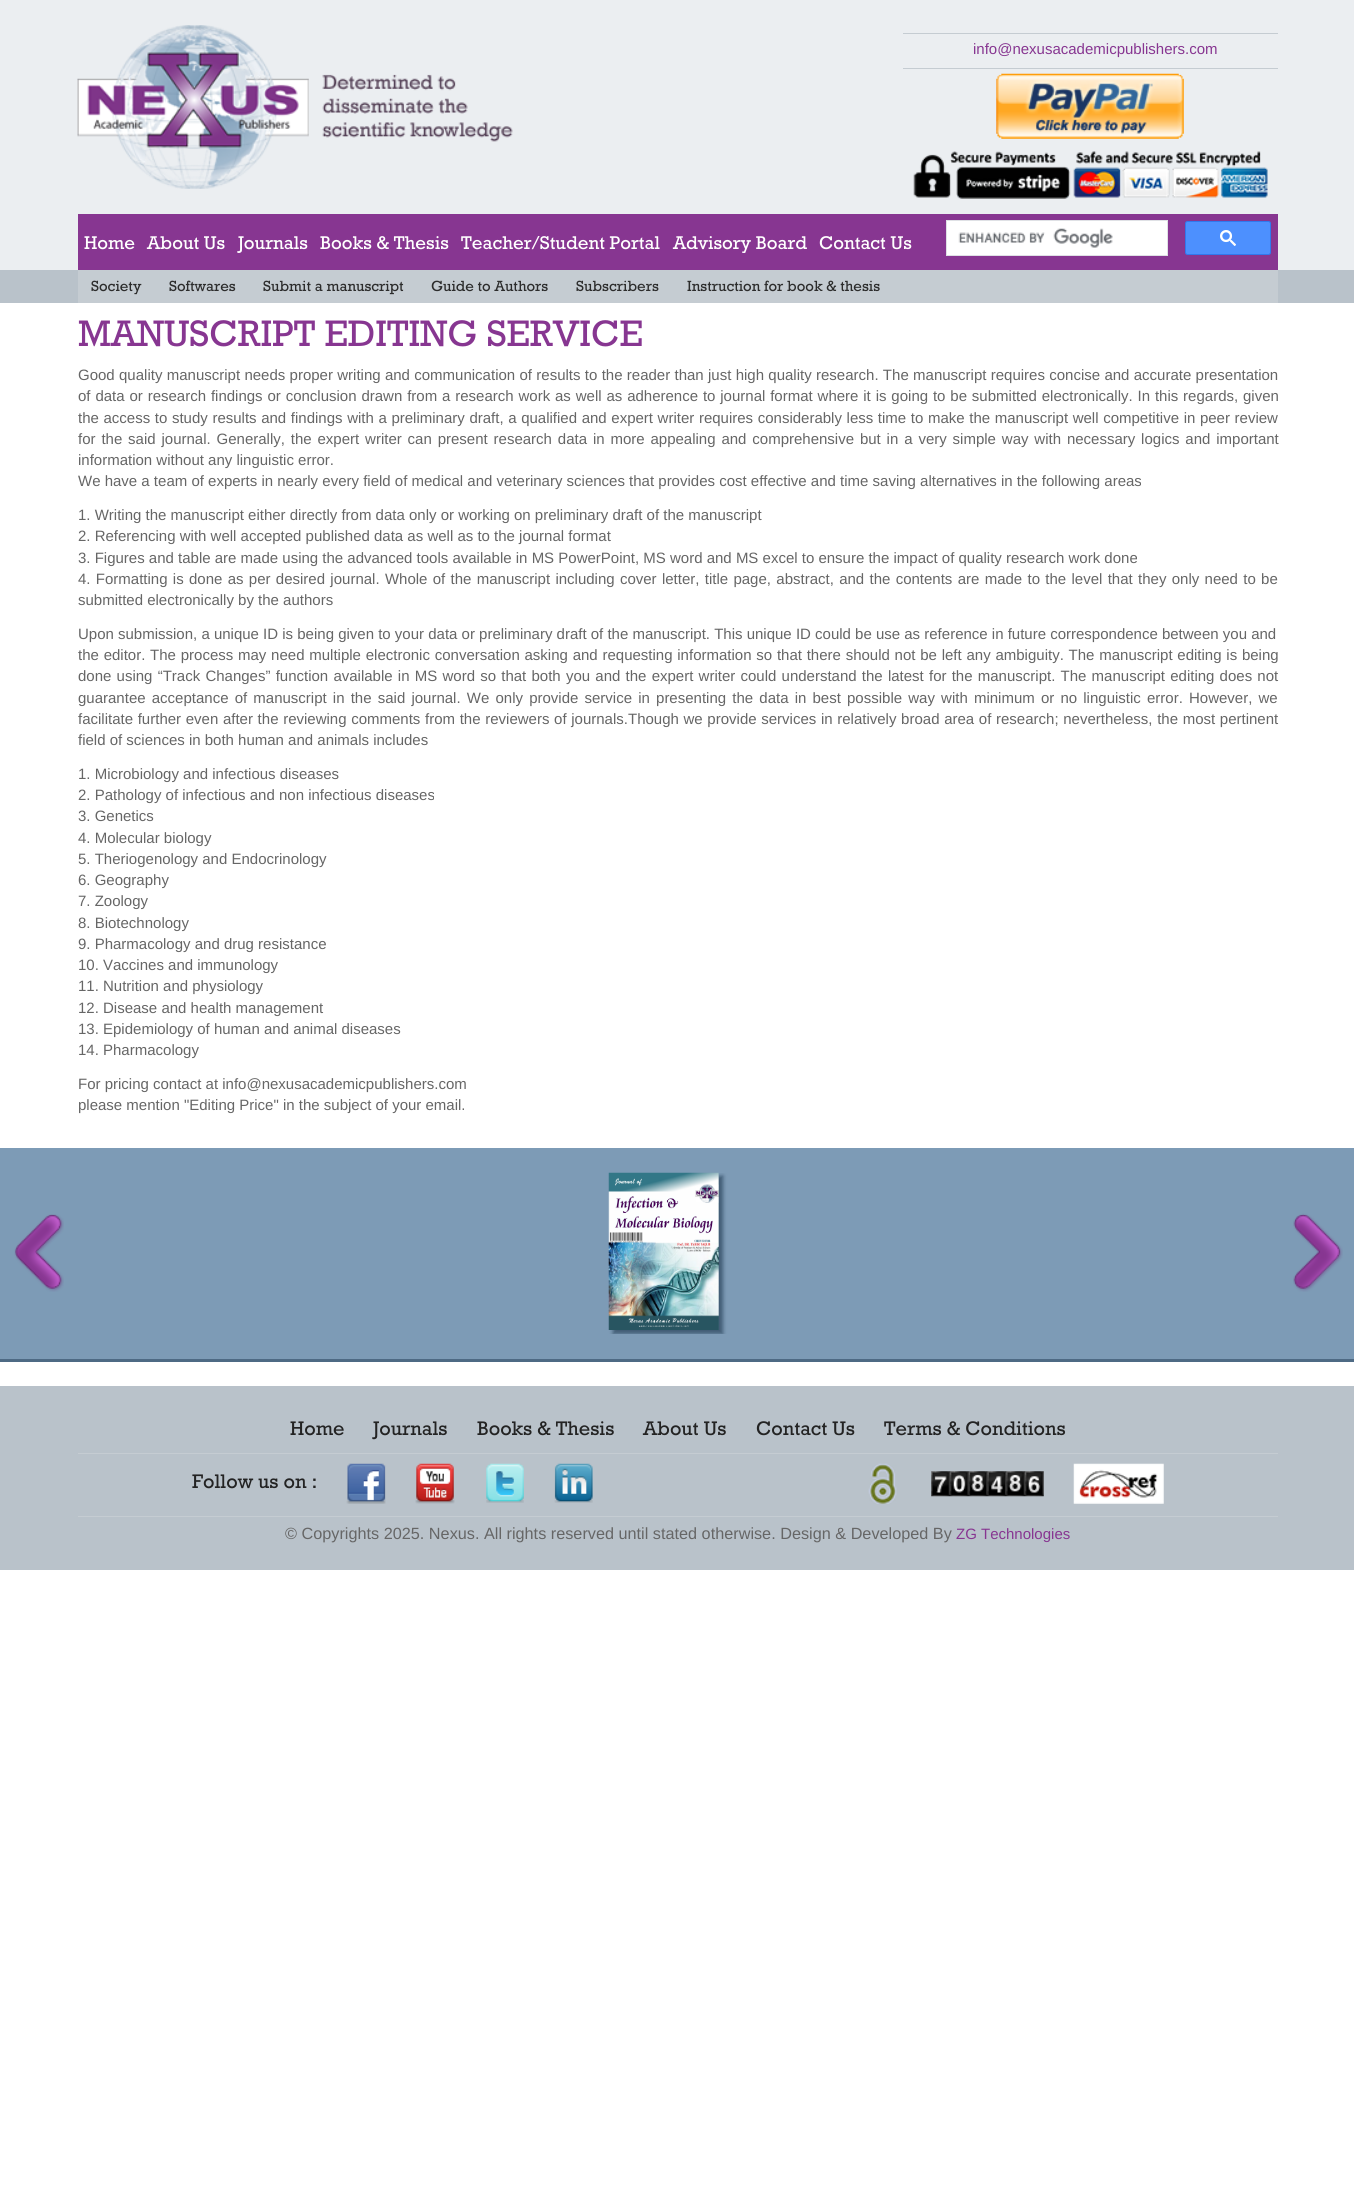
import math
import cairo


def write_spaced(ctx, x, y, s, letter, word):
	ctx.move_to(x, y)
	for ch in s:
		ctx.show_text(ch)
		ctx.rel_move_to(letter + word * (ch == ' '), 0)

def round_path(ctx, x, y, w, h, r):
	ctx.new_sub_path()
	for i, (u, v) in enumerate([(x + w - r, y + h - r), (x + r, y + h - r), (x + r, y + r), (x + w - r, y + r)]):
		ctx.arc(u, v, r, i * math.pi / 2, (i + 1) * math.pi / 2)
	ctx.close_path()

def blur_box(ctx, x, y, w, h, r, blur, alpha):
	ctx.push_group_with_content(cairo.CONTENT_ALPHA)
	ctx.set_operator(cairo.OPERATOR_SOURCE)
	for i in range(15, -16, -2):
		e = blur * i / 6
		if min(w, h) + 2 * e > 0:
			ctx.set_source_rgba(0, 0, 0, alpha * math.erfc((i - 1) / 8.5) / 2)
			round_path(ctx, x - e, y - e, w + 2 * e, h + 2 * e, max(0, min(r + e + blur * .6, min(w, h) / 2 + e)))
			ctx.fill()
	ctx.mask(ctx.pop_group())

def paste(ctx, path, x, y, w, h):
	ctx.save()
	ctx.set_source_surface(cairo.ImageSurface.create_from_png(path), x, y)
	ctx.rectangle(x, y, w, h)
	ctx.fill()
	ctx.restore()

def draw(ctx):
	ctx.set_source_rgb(1, 1, 1)
	ctx.paint()
	ctx.set_source_rgb(0.918, 0.933, 0.945)
	ctx.rectangle(0, 0, 1354, 270)
	ctx.fill()
	paste(ctx, 'media/1.png', 77, 25, 436, 164)
	ctx.set_source_rgb(0.773, 0.8, 0.824)
	ctx.rectangle(903, 33, 375, 1)
	ctx.fill()
	ctx.select_font_face('Liberation Sans')
	ctx.set_font_size(15)
	ctx.set_source_rgb(0.529, 0.212, 0.569)
	ctx.move_to(973, 54)
	ctx.show_text('info@nexusacademicpublishers.com')
	ctx.set_source_rgb(0.773, 0.8, 0.824)
	ctx.rectangle(903, 68, 375, 1)
	ctx.fill()
	paste(ctx, 'media/2.png', 996, 73, 188, 66)
	paste(ctx, 'media/3.png', 913, 151, 355, 48)
	ctx.set_source_rgb(0.529, 0.212, 0.569)
	ctx.rectangle(78, 214, 1200, 56)
	ctx.fill()
	ctx.select_font_face('Rockwell')
	ctx.set_font_size(18.75)
	ctx.set_source_rgb(1, 1, 1)
	for x, y, s in [
		(84, 249, 'Home'),
		(147, 249, 'About Us'),
		(238, 249, 'Journals'),
		(320, 249, 'Books & Thesis'),
		(461, 249, 'Teacher/Student Portal'),
		(673, 249, 'Advisory Board'),
		(819, 249, 'Contact Us'),
	]:
		ctx.move_to(x, y)
		ctx.show_text(s)
	ctx.rectangle(946.5, 220.5, 221, 35)
	ctx.fill_preserve()
	ctx.set_source_rgb(0.875, 0.882, 0.898)
	ctx.set_line_width(1)
	ctx.stroke()
	paste(ctx, 'media/4.png', 958, 228, 155, 20)
	ctx.set_source_rgb(0.302, 0.565, 0.996)
	round_path(ctx, 1185.5, 221.5, 85, 33, 2)
	ctx.fill_preserve()
	ctx.set_source_rgb(0.188, 0.475, 0.929)
	ctx.stroke()
	paste(ctx, 'media/5.png', 1220, 230, 16, 16)
	ctx.set_source_rgb(0.725, 0.761, 0.792)
	ctx.rectangle(0, 270, 1354, 33)
	ctx.fill()
	ctx.set_source_rgb(0.773, 0.8, 0.824)
	ctx.rectangle(78, 270, 1200, 33)
	ctx.fill()
	ctx.set_font_size(15)
	ctx.set_source_rgb(0.173, 0.173, 0.173)
	for x, y, s in [
		(91, 291, 'Society'),
		(169, 291, 'Softwares'),
		(263, 291, 'Submit a manuscript'),
		(431, 291, 'Guide to Authors'),
		(576, 291, 'Subscribers'),
		(687, 291, 'Instruction for book & thesis'),
	]:
		ctx.move_to(x, y)
		ctx.show_text(s)
	ctx.set_font_size(37.5)
	ctx.set_source_rgb(0.529, 0.212, 0.569)
	ctx.move_to(78, 346)
	ctx.show_text('MANUSCRIPT EDITING SERVICE')
	ctx.select_font_face('Liberation Sans')
	ctx.set_font_size(15)
	ctx.set_source_rgb(0.4, 0.4, 0.4)
	write_spaced(ctx, 78, 380, 'Good quality manuscript needs proper writing and communication of results to the reader than just high quality research. The manuscript requires concise and accurate presentation', 0, 0.15)
	write_spaced(ctx, 78, 401, 'of data or research findings or conclusion drawn from a research work as well as adherence to journal format where it is going to be submitted electronically. In this regards, given', 0, 0.7)
	write_spaced(ctx, 78, 423, 'the access to study results and findings with a preliminary draft, a qualified and expert writer requires considerably less time to make the manuscript well competitive in peer review', 0, 0.45)
	write_spaced(ctx, 78, 444, 'for the said journal. Generally, the expert writer can present research data in more appealing and comprehensive but in a very simple way with necessary logics and important', 0, 1.7)
	for x, y, s in [
		(78, 465, 'information without any linguistic error.'),
		(78, 486, 'We have a team of experts in nearly every field of medical and veterinary sciences that provides cost effective and time saving alternatives in the following areas'),
		(78, 520, '1. Writing the manuscript either directly from data only or working on preliminary draft of the manuscript'),
		(78, 541, '2. Referencing with well accepted published data as well as to the journal format'),
		(78, 563, '3. Figures and table are made using the advanced tools available in MS PowerPoint, MS word and MS excel to ensure the impact of quality research work done'),
	]:
		ctx.move_to(x, y)
		ctx.show_text(s)
	write_spaced(ctx, 78, 584, '4. Formatting is done as per desired journal. Whole of the manuscript including cover letter, title page, abstract, and the contents are made to the level that they only need to be', 0, 1.15)
	ctx.move_to(78, 605)
	ctx.show_text('submitted electronically by the authors')
	ctx.move_to(78, 639)
	ctx.show_text('Upon submission, a unique ID is being given to your data or preliminary draft of the manuscript. This unique ID could be use as reference in future correspondence between you and')
	write_spaced(ctx, 78, 660, 'the editor. The process may need multiple electronic conversation asking and requesting information so that there should not be left any ambiguity. The manuscript editing is being', 0, 0.6)
	write_spaced(ctx, 78, 681, 'done using “Track Changes” function available in MS word so that both you and the expert writer could understand the latest for the manuscript. The manuscript editing does not', 0, 1.05)
	write_spaced(ctx, 78, 703, 'guarantee acceptance of manuscript in the said journal. We only provide service in presenting the data in best possible way with minimum or no linguistic error. However, we', 0, 2)
	write_spaced(ctx, 78, 724, 'facilitate further even after the reviewing comments from the reviewers of journals.Though we provide services in relatively broad area of research; nevertheless, the most pertinent', 0, 0.5)
	for x, y, s in [
		(78, 745, 'field of sciences in both human and animals includes'),
		(78, 779, '1. Microbiology and infectious diseases'),
		(78, 800, '2. Pathology of infectious and non infectious diseases'),
		(78, 821, '3. Genetics'),
		(78, 843, '4. Molecular biology'),
		(78, 864, '5. Theriogenology and Endocrinology'),
		(78, 885, '6. Geography'),
		(78, 906, '7. Zoology'),
		(78, 928, '8. Biotechnology'),
		(78, 949, '9. Pharmacology and drug resistance'),
		(78, 970, '10. Vaccines and immunology'),
		(78, 991, '11. Nutrition and physiology'),
		(78, 1013, '12. Disease and health management'),
		(78, 1034, '13. Epidemiology of human and animal diseases'),
		(78, 1055, '14. Pharmacology'),
		(78, 1089, 'For pricing contact at info@nexusacademicpublishers.com'),
		(78, 1110, 'please mention "Editing Price" in the subject of your email.'),
	]:
		ctx.move_to(x, y)
		ctx.show_text(s)
	ctx.set_source_rgb(0.49, 0.608, 0.714)
	ctx.rectangle(0, 1148, 1354, 211)
	ctx.fill()
	ctx.set_source_rgb(0.306, 0.416, 0.518)
	ctx.rectangle(0, 1359, 1354, 3)
	ctx.fill()
	paste(ctx, 'media/6.png', 14, 1214, 50, 78)
	ctx.save()
	ctx.rectangle(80, 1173, 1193, 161)
	ctx.clip()
	ctx.set_source_rgb(0.255, 0.361, 0.459)
	blur_box(ctx, 613, 1176, 110, 158, 0, 2, 1)
	ctx.restore()
	paste(ctx, 'media/7.png', 608, 1172, 111, 158)
	paste(ctx, 'media/8.png', 1293, 1213, 50, 79)
	ctx.set_source_rgb(0.725, 0.761, 0.792)
	ctx.rectangle(0, 1386, 1354, 184)
	ctx.fill()
	ctx.select_font_face('Rockwell')
	ctx.set_font_size(20)
	ctx.set_source_rgb(0.137, 0.137, 0.137)
	for x, y, s in [
		(290, 1435, 'Home'),
		(373, 1435, 'Journals'),
		(477, 1435, 'Books & Thesis'),
		(643, 1435, 'About Us'),
		(756, 1435, 'Contact Us'),
		(884, 1435, 'Terms & Conditions'),
	]:
		ctx.move_to(x, y)
		ctx.show_text(s)
	ctx.set_source_rgb(0.773, 0.8, 0.824)
	ctx.rectangle(78, 1453, 1200, 1)
	ctx.fill()
	ctx.set_source_rgb(0.137, 0.137, 0.137)
	ctx.move_to(192, 1488)
	ctx.show_text('Follow us on :')
	paste(ctx, 'media/9.png', 346, 1463, 40, 41)
	paste(ctx, 'media/10.png', 415, 1463, 40, 41)
	paste(ctx, 'media/11.png', 486, 1463, 38, 40)
	paste(ctx, 'media/12.png', 554, 1463, 39, 40)
	paste(ctx, 'media/13.png', 868, 1463, 29, 41)
	paste(ctx, 'media/14.png', 931, 1471, 113, 26)
	paste(ctx, 'media/15.png', 1073, 1463, 91, 41)
	ctx.set_source_rgb(0.773, 0.8, 0.824)
	ctx.rectangle(78, 1516, 1200, 1)
	ctx.fill()
	ctx.select_font_face('Liberation Sans')
	ctx.set_font_size(16.25)
	ctx.set_source_rgb(0.4, 0.4, 0.4)
	ctx.move_to(285, 1539)
	ctx.show_text('© Copyrights 2025. Nexus. All rights reserved until stated otherwise. Design & Developed By')
	ctx.set_font_size(15)
	ctx.set_source_rgb(0.529, 0.212, 0.569)
	ctx.move_to(956, 1539)
	ctx.show_text('ZG Technologies')


surface = cairo.ImageSurface(cairo.FORMAT_RGB24, 1354, 2199)
ctx = cairo.Context(surface)
options = cairo.FontOptions()
options.set_hint_metrics(cairo.HINT_METRICS_OFF)
options.set_hint_style(cairo.HINT_STYLE_NONE)
ctx.set_font_options(options)
ctx.set_miter_limit(4)
draw(ctx)
surface.write_to_png('image.png')
